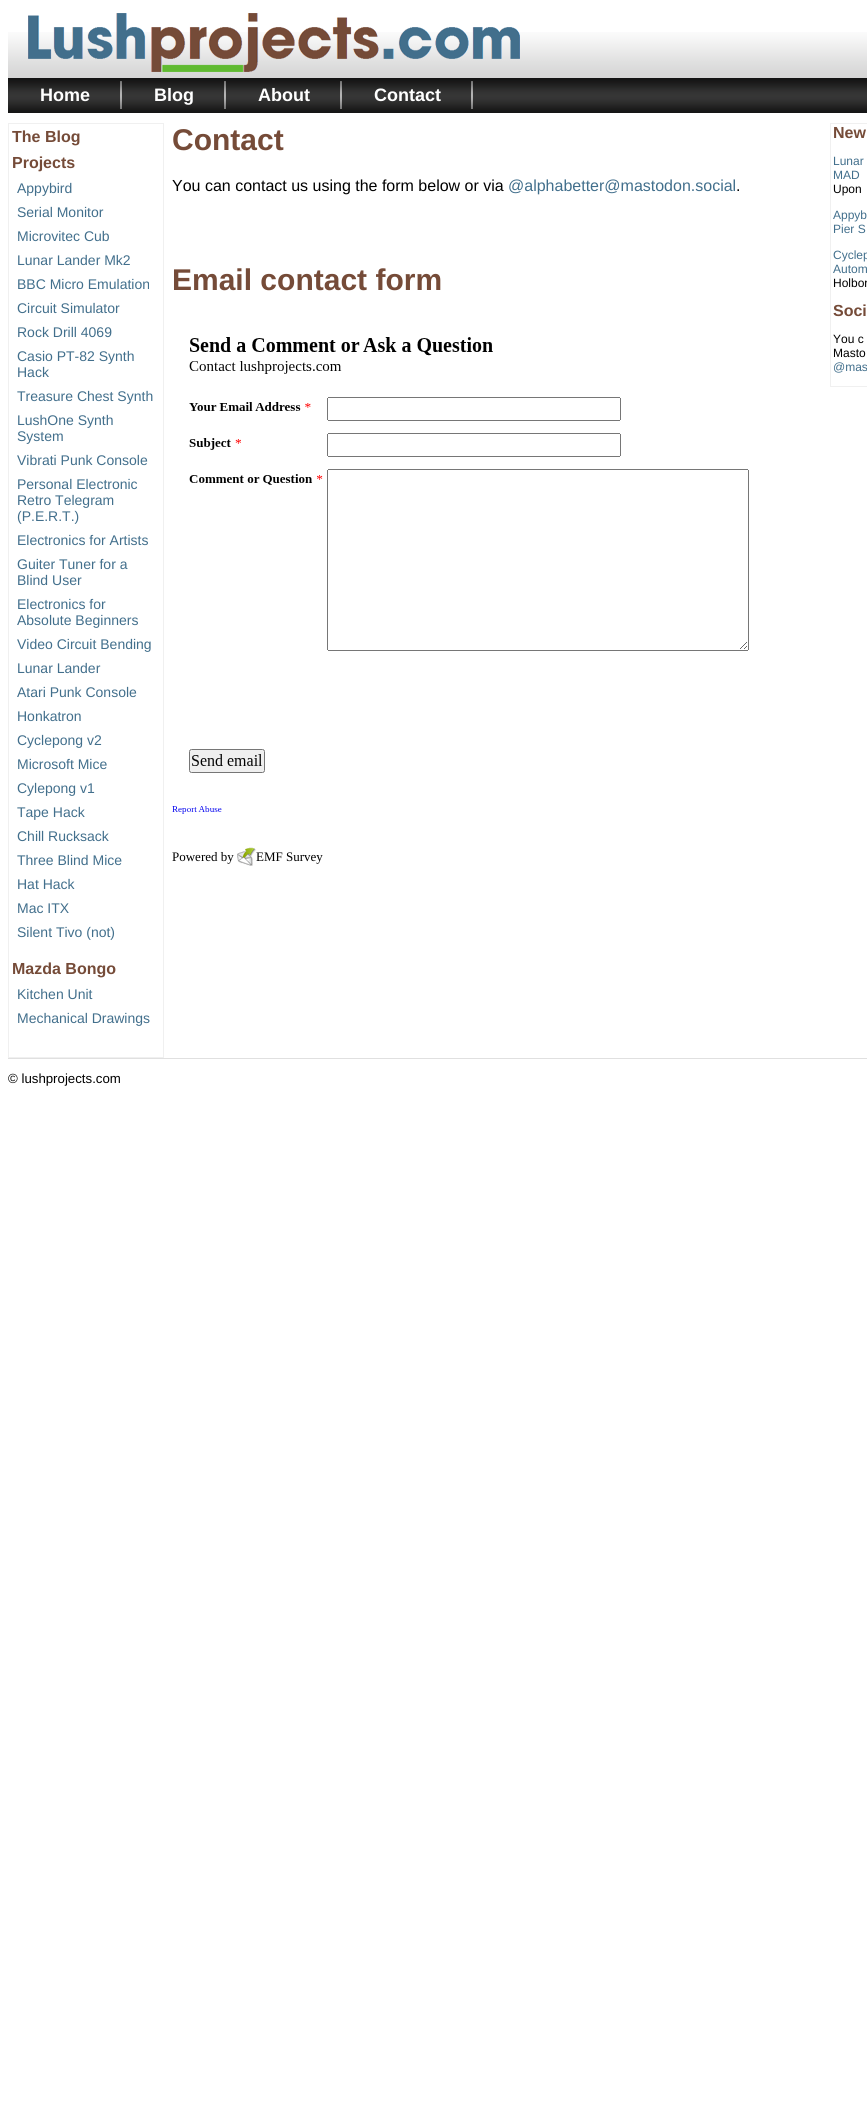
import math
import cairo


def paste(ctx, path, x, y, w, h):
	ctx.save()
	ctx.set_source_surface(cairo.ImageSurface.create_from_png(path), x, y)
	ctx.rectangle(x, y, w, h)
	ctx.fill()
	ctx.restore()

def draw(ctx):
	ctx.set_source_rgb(1, 1, 1)
	ctx.paint()
	paste(ctx, 'media/1.png', 8, 32, 859, 46)
	paste(ctx, 'media/2.png', 28, 13, 492, 59)
	paste(ctx, 'media/3.png', 8, 78, 859, 35)
	paste(ctx, 'media/4.png', 120, 81, 2, 28)
	ctx.select_font_face('Liberation Sans', cairo.FONT_SLANT_NORMAL, cairo.FONT_WEIGHT_BOLD)
	ctx.set_font_size(18)
	ctx.set_source_rgb(1, 1, 1)
	ctx.move_to(40, 101)
	ctx.show_text('Home')
	paste(ctx, 'media/4.png', 224, 81, 2, 28)
	ctx.move_to(154, 101)
	ctx.show_text('Blog')
	paste(ctx, 'media/4.png', 340, 81, 2, 28)
	ctx.move_to(258, 101)
	ctx.show_text('About')
	paste(ctx, 'media/4.png', 471, 81, 2, 28)
	ctx.move_to(374, 101)
	ctx.show_text('Contact')
	ctx.rectangle(8.5, 123.5, 155, 934)
	ctx.set_source_rgb(0.941, 0.941, 0.941)
	ctx.set_line_width(1)
	ctx.stroke()
	ctx.set_font_size(16)
	ctx.set_source_rgb(0.459, 0.294, 0.22)
	ctx.move_to(12, 142)
	ctx.show_text('The Blog')
	ctx.move_to(12, 168)
	ctx.show_text('Projects')
	ctx.select_font_face('Liberation Sans')
	ctx.set_font_size(14)
	ctx.set_source_rgb(0.259, 0.435, 0.549)
	for x, y, s in [
		(17, 193, 'Appybird'),
		(17, 217, 'Serial Monitor'),
		(17, 241, 'Microvitec Cub'),
		(17, 265, 'Lunar Lander Mk2'),
		(17, 289, 'BBC Micro Emulation'),
		(17, 313, 'Circuit Simulator'),
		(17, 337, 'Rock Drill 4069'),
		(17, 361, 'Casio PT-82 Synth'),
		(17, 377, 'Hack'),
		(17, 401, 'Treasure Chest Synth'),
		(17, 425, 'LushOne Synth'),
		(17, 441, 'System'),
		(17, 465, 'Vibrati Punk Console'),
		(17, 489, 'Personal Electronic'),
		(17, 505, 'Retro Telegram'),
		(17, 521, '(P.E.R.T.)'),
		(17, 545, 'Electronics for Artists'),
		(17, 569, 'Guiter Tuner for a'),
		(17, 585, 'Blind User'),
		(17, 609, 'Electronics for'),
		(17, 625, 'Absolute Beginners'),
		(17, 649, 'Video Circuit Bending'),
		(17, 673, 'Lunar Lander'),
		(17, 697, 'Atari Punk Console'),
		(17, 721, 'Honkatron'),
		(17, 745, 'Cyclepong v2'),
		(17, 769, 'Microsoft Mice'),
		(17, 793, 'Cylepong v1'),
		(17, 817, 'Tape Hack'),
		(17, 841, 'Chill Rucksack'),
		(17, 865, 'Three Blind Mice'),
		(17, 889, 'Hat Hack'),
		(17, 913, 'Mac ITX'),
		(17, 937, 'Silent Tivo (not)'),
	]:
		ctx.move_to(x, y)
		ctx.show_text(s)
	ctx.select_font_face('Liberation Sans', cairo.FONT_SLANT_NORMAL, cairo.FONT_WEIGHT_BOLD)
	ctx.set_font_size(16)
	ctx.set_source_rgb(0.459, 0.294, 0.22)
	ctx.move_to(12, 974)
	ctx.show_text('Mazda Bongo')
	ctx.select_font_face('Liberation Sans')
	ctx.set_font_size(14)
	ctx.set_source_rgb(0.259, 0.435, 0.549)
	ctx.move_to(17, 999)
	ctx.show_text('Kitchen Unit')
	ctx.move_to(17, 1023)
	ctx.show_text('Mechanical Drawings')
	ctx.select_font_face('Liberation Sans', cairo.FONT_SLANT_NORMAL, cairo.FONT_WEIGHT_BOLD)
	ctx.set_font_size(30)
	ctx.set_source_rgb(0.459, 0.294, 0.22)
	ctx.move_to(172, 150)
	ctx.show_text('Contact')
	ctx.select_font_face('Liberation Sans')
	ctx.set_font_size(16)
	ctx.set_source_rgb(0, 0, 0)
	ctx.move_to(172, 191)
	ctx.show_text('You can contact us using the form below or via')
	ctx.set_source_rgb(0.259, 0.435, 0.549)
	ctx.move_to(508, 191)
	ctx.show_text('@alphabetter@mastodon.social')
	ctx.set_source_rgb(0, 0, 0)
	ctx.move_to(736, 191)
	ctx.show_text('.')
	ctx.select_font_face('Liberation Sans', cairo.FONT_SLANT_NORMAL, cairo.FONT_WEIGHT_BOLD)
	ctx.set_font_size(30)
	ctx.set_source_rgb(0.459, 0.294, 0.22)
	ctx.move_to(172, 290)
	ctx.show_text('Email contact form')
	paste(ctx, 'media/5.png', 172, 337, 577, 477)
	ctx.select_font_face('Liberation Serif')
	ctx.set_font_size(13)
	ctx.set_source_rgb(0, 0, 0)
	ctx.move_to(172, 861)
	ctx.show_text('Powered by')
	paste(ctx, 'media/6.png', 237, 847, 19, 19)
	ctx.move_to(256, 861)
	ctx.show_text('EMF Survey')
	ctx.rectangle(830.5, 123.5, 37, 263)
	ctx.set_source_rgb(0.941, 0.941, 0.941)
	ctx.stroke()
	ctx.select_font_face('Liberation Sans', cairo.FONT_SLANT_NORMAL, cairo.FONT_WEIGHT_BOLD)
	ctx.set_font_size(16)
	ctx.set_source_rgb(0.459, 0.294, 0.22)
	ctx.move_to(833, 138)
	ctx.show_text('New')
	ctx.select_font_face('Liberation Sans')
	ctx.set_font_size(12)
	ctx.set_source_rgb(0.259, 0.435, 0.549)
	ctx.move_to(833, 165)
	ctx.show_text('Lunar')
	ctx.move_to(833, 179)
	ctx.show_text('MAD')
	ctx.set_source_rgb(0, 0, 0)
	ctx.move_to(833, 193)
	ctx.show_text('Upon')
	ctx.set_source_rgb(0.259, 0.435, 0.549)
	for x, y, s in [
		(833, 219, 'Appyb'),
		(833, 233, 'Pier S'),
		(833, 259, 'Cyclep'),
		(833, 273, 'Autom'),
	]:
		ctx.move_to(x, y)
		ctx.show_text(s)
	ctx.set_source_rgb(0, 0, 0)
	ctx.move_to(833, 287)
	ctx.show_text('Holbor')
	ctx.select_font_face('Liberation Sans', cairo.FONT_SLANT_NORMAL, cairo.FONT_WEIGHT_BOLD)
	ctx.set_font_size(16)
	ctx.set_source_rgb(0.459, 0.294, 0.22)
	ctx.move_to(833, 316)
	ctx.show_text('Soci')
	ctx.select_font_face('Liberation Sans')
	ctx.set_font_size(12)
	ctx.set_source_rgb(0, 0, 0)
	ctx.move_to(833, 343)
	ctx.show_text('You c')
	ctx.move_to(833, 357)
	ctx.show_text('Masto')
	ctx.set_source_rgb(0.259, 0.435, 0.549)
	ctx.move_to(833, 371)
	ctx.show_text('@mas')
	ctx.set_source_rgb(0.878, 0.878, 0.878)
	ctx.rectangle(8, 1058, 859, 1)
	ctx.fill()
	ctx.set_font_size(13.25)
	ctx.set_source_rgb(0, 0, 0)
	ctx.move_to(8, 1083)
	ctx.show_text('© lushprojects.com')


surface = cairo.ImageSurface(cairo.FORMAT_RGB24, 867, 2110)
ctx = cairo.Context(surface)
options = cairo.FontOptions()
options.set_hint_metrics(cairo.HINT_METRICS_OFF)
options.set_hint_style(cairo.HINT_STYLE_NONE)
ctx.set_font_options(options)
ctx.set_miter_limit(4)
draw(ctx)
surface.write_to_png('image.png')
